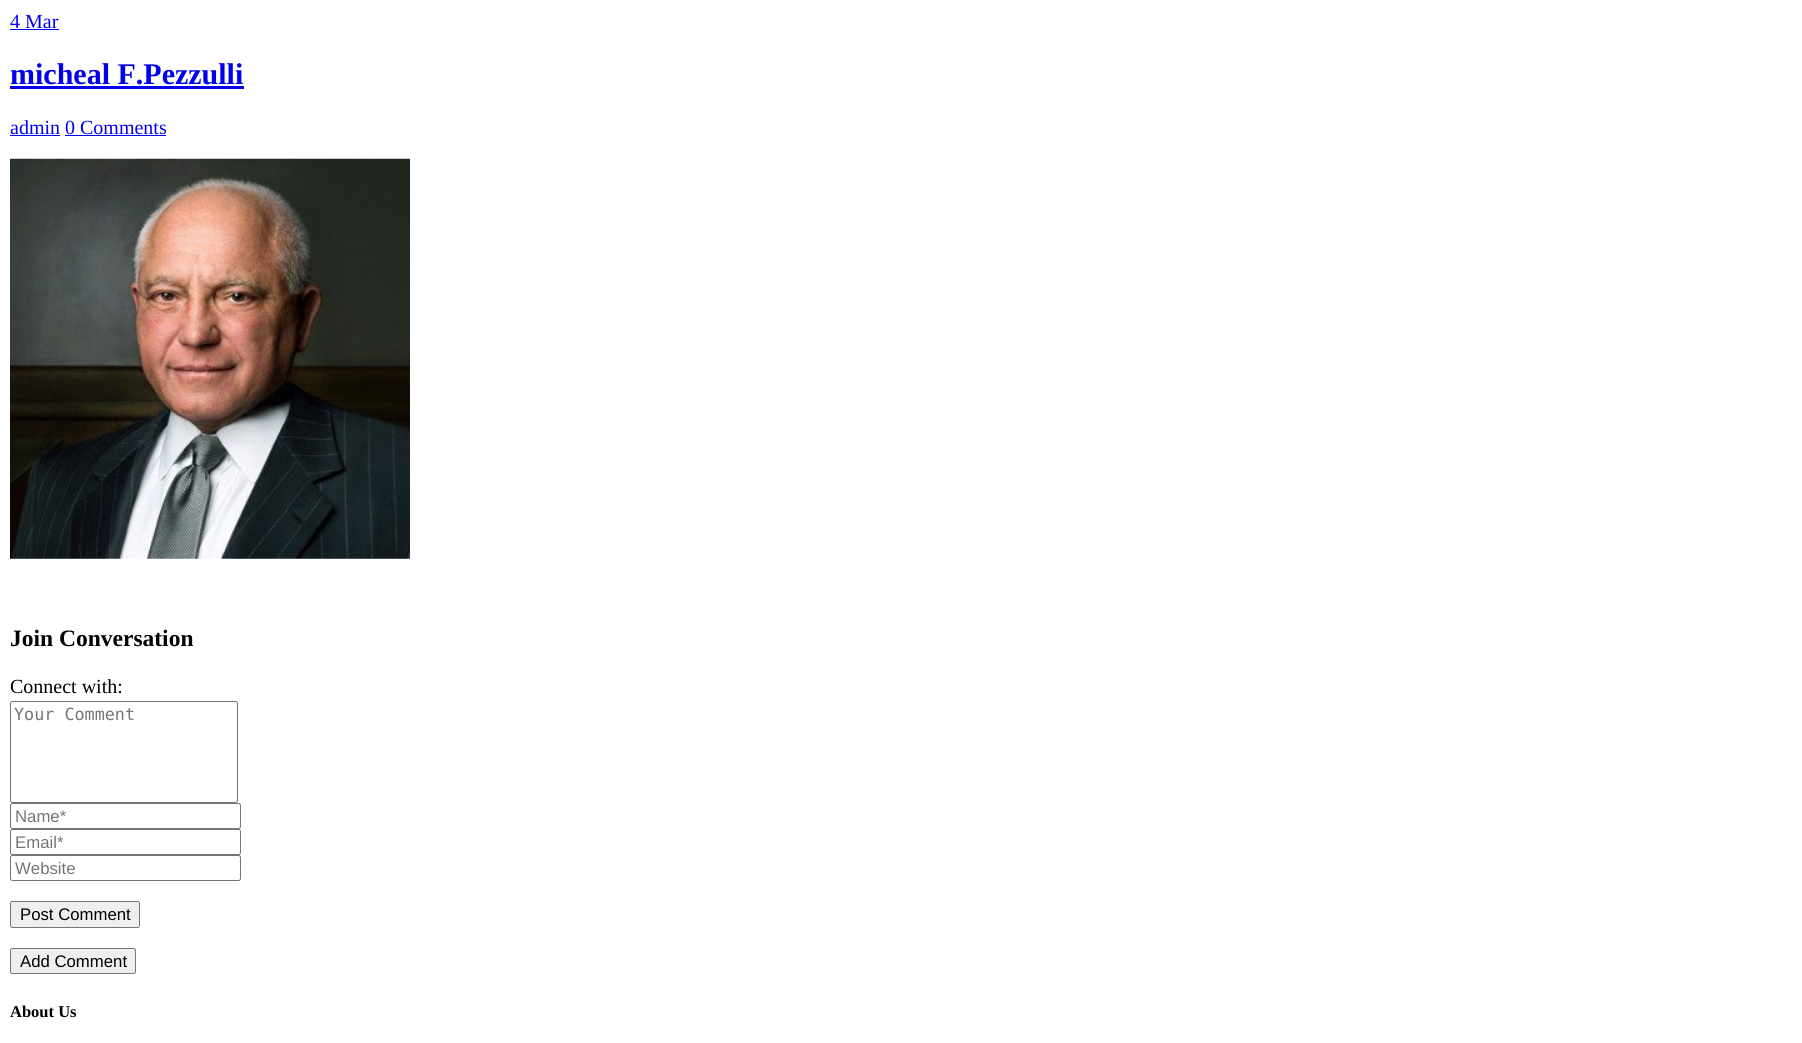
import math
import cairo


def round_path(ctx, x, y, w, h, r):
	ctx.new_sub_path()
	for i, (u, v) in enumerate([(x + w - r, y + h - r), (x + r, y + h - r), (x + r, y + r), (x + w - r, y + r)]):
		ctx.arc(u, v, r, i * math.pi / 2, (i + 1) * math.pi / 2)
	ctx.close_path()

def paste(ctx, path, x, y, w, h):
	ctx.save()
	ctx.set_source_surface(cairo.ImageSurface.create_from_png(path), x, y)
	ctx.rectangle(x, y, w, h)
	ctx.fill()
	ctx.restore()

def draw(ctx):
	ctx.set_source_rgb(1, 1, 1)
	ctx.paint()
	ctx.select_font_face('Liberation Serif')
	ctx.set_font_size(20)
	ctx.set_source_rgb(0, 0, 0.933)
	ctx.move_to(10, 28)
	ctx.show_text('4 Mar')
	ctx.rectangle(10, 29, 49, 1)
	ctx.fill()
	ctx.select_font_face('Liberation Serif', cairo.FONT_SLANT_NORMAL, cairo.FONT_WEIGHT_BOLD)
	ctx.set_font_size(30)
	ctx.move_to(10, 84)
	ctx.show_text('micheal F.Pezzulli')
	ctx.rectangle(10, 86, 234, 3)
	ctx.fill()
	ctx.select_font_face('Liberation Serif')
	ctx.set_font_size(20)
	ctx.move_to(10, 134)
	ctx.show_text('admin 0 Comments')
	ctx.rectangle(10, 135, 50, 1)
	ctx.fill()
	ctx.rectangle(65, 135, 101, 1)
	ctx.fill()
	paste(ctx, 'media/1.png', 10, 158, 400, 401)
	ctx.select_font_face('Liberation Serif', cairo.FONT_SLANT_NORMAL, cairo.FONT_WEIGHT_BOLD)
	ctx.set_font_size(23.5)
	ctx.set_source_rgb(0, 0, 0)
	ctx.move_to(10, 646)
	ctx.show_text('Join Conversation')
	ctx.select_font_face('Liberation Serif')
	ctx.set_font_size(20)
	ctx.move_to(10, 693)
	ctx.show_text('Connect with:')
	round_path(ctx, 10.5, 701.5, 227, 101, 2)
	ctx.set_source_rgb(0.463, 0.463, 0.463)
	ctx.set_line_width(1)
	ctx.stroke()
	ctx.select_font_face('DejaVu Sans Mono')
	ctx.set_font_size(16.75)
	ctx.set_source_rgb(0.459, 0.459, 0.459)
	ctx.move_to(14, 720)
	ctx.show_text('Your Comment')
	round_path(ctx, 10.5, 803.5, 230, 25, 2)
	ctx.set_source_rgb(0.463, 0.463, 0.463)
	ctx.stroke()
	ctx.select_font_face('Liberation Sans')
	ctx.set_source_rgb(0.459, 0.459, 0.459)
	ctx.move_to(15, 822)
	ctx.show_text('Name*')
	round_path(ctx, 10.5, 829.5, 230, 25, 2)
	ctx.set_source_rgb(0.463, 0.463, 0.463)
	ctx.stroke()
	ctx.set_source_rgb(0.459, 0.459, 0.459)
	ctx.move_to(15, 848)
	ctx.show_text('Email*')
	round_path(ctx, 10.5, 855.5, 230, 25, 2)
	ctx.set_source_rgb(0.463, 0.463, 0.463)
	ctx.stroke()
	ctx.set_source_rgb(0.459, 0.459, 0.459)
	ctx.move_to(15, 874)
	ctx.show_text('Website')
	ctx.set_source_rgb(0.937, 0.937, 0.937)
	round_path(ctx, 10.5, 901.5, 129, 26, 2)
	ctx.fill_preserve()
	ctx.set_source_rgb(0.463, 0.463, 0.463)
	ctx.stroke()
	ctx.set_source_rgb(0, 0, 0)
	ctx.move_to(20, 920)
	ctx.show_text('Post Comment')
	ctx.set_source_rgb(0.937, 0.937, 0.937)
	round_path(ctx, 10.5, 948.5, 125, 25, 2)
	ctx.fill_preserve()
	ctx.set_source_rgb(0.463, 0.463, 0.463)
	ctx.stroke()
	ctx.set_source_rgb(0, 0, 0)
	ctx.move_to(20, 967)
	ctx.show_text('Add Comment')
	ctx.select_font_face('Liberation Serif', cairo.FONT_SLANT_NORMAL, cairo.FONT_WEIGHT_BOLD)
	ctx.set_font_size(16.5)
	ctx.move_to(10, 1017)
	ctx.show_text('About Us')


surface = cairo.ImageSurface(cairo.FORMAT_RGB24, 1802, 1043)
ctx = cairo.Context(surface)
options = cairo.FontOptions()
options.set_hint_metrics(cairo.HINT_METRICS_OFF)
options.set_hint_style(cairo.HINT_STYLE_NONE)
ctx.set_font_options(options)
ctx.set_miter_limit(4)
draw(ctx)
surface.write_to_png('image.png')
